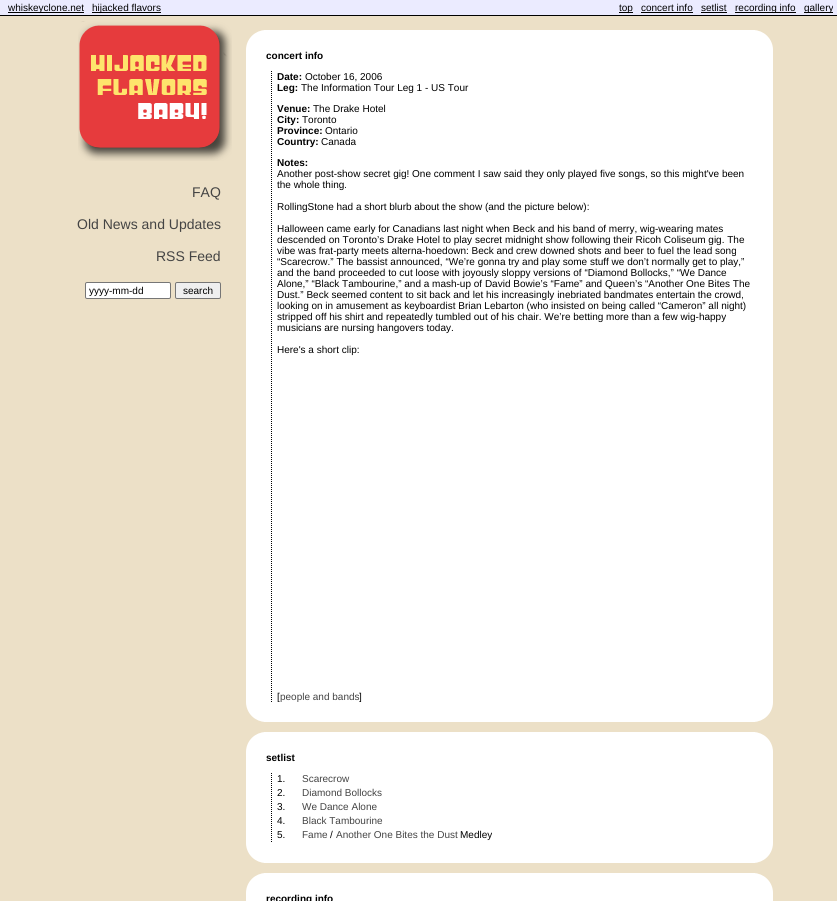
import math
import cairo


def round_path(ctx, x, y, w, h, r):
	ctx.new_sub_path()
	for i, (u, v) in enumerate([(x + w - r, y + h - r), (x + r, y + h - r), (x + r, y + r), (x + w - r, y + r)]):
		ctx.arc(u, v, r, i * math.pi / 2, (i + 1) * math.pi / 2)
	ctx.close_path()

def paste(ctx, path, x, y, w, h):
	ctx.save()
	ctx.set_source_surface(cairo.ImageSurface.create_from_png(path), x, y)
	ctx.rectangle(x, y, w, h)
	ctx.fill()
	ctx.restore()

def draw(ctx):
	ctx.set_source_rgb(0.925, 0.878, 0.78)
	ctx.paint()
	ctx.set_source_rgb(0.918, 0.918, 1)
	ctx.rectangle(0, 0, 837, 15)
	ctx.fill()
	ctx.set_source_rgb(0, 0, 0)
	ctx.rectangle(0, 15, 837, 1)
	ctx.rectangle(8, 12, 76, 1)
	ctx.fill()
	ctx.select_font_face('Liberation Sans')
	ctx.set_font_size(10)
	ctx.move_to(8, 11)
	ctx.show_text('whiskeyclone.net')
	ctx.rectangle(92, 12, 69, 1)
	ctx.fill()
	ctx.move_to(92, 11)
	ctx.show_text('hijacked flavors')
	ctx.rectangle(619, 12, 14, 1)
	ctx.fill()
	ctx.move_to(619, 11)
	ctx.show_text('top')
	ctx.move_to(641, 11)
	ctx.show_text('concert info')
	ctx.rectangle(641, 12, 52, 1)
	ctx.fill()
	ctx.move_to(701, 11)
	ctx.show_text('setlist')
	ctx.rectangle(701, 12, 26, 1)
	ctx.fill()
	ctx.rectangle(735, 12, 61, 1)
	ctx.fill()
	ctx.move_to(735, 11)
	ctx.show_text('recording info')
	ctx.rectangle(804, 12, 29, 1)
	ctx.fill()
	ctx.move_to(804, 11)
	ctx.show_text('gallery')
	paste(ctx, 'media/1.png', 78, 21, 154, 140)
	ctx.set_font_size(14)
	ctx.set_source_rgb(0.267, 0.267, 0.267)
	for x, y, s in [
		(192, 197, 'FAQ'),
		(77, 229, 'Old News and Updates'),
		(156, 261, 'RSS Feed'),
	]:
		ctx.move_to(x, y)
		ctx.show_text(s)
	ctx.set_source_rgb(1, 1, 1)
	round_path(ctx, 85.5, 282.5, 85, 16, 1.5)
	ctx.fill_preserve()
	ctx.set_source_rgb(0.463, 0.463, 0.463)
	ctx.set_line_width(1)
	ctx.stroke()
	ctx.set_font_size(10)
	ctx.set_source_rgb(0, 0, 0)
	ctx.move_to(89, 294)
	ctx.show_text('yyyy-mm-dd')
	ctx.set_source_rgb(0.937, 0.937, 0.937)
	round_path(ctx, 175.5, 282.5, 45, 16, 1.5)
	ctx.fill_preserve()
	ctx.set_source_rgb(0.463, 0.463, 0.463)
	ctx.stroke()
	ctx.set_source_rgb(0, 0, 0)
	ctx.move_to(183, 294)
	ctx.show_text('search')
	paste(ctx, 'media/2.png', 246, 30, 527, 20)
	ctx.set_source_rgb(1, 1, 1)
	ctx.rectangle(246, 50, 527, 652)
	ctx.fill()
	ctx.select_font_face('Liberation Sans', cairo.FONT_SLANT_NORMAL, cairo.FONT_WEIGHT_BOLD)
	ctx.set_source_rgb(0, 0, 0)
	ctx.move_to(266, 59)
	ctx.show_text('concert info')
	ctx.new_path()
	ctx.move_to(271.5, 71)
	ctx.line_to(271.5, 702)
	ctx.set_dash([1, 1])
	ctx.stroke()
	ctx.move_to(277, 80)
	ctx.show_text('Date:')
	ctx.select_font_face('Liberation Sans')
	ctx.move_to(305, 80)
	ctx.show_text('October 16, 2006')
	ctx.select_font_face('Liberation Sans', cairo.FONT_SLANT_NORMAL, cairo.FONT_WEIGHT_BOLD)
	ctx.move_to(277, 91)
	ctx.show_text('Leg:')
	ctx.select_font_face('Liberation Sans')
	ctx.move_to(301, 91)
	ctx.show_text('The Information Tour Leg 1 - US Tour')
	ctx.select_font_face('Liberation Sans', cairo.FONT_SLANT_NORMAL, cairo.FONT_WEIGHT_BOLD)
	ctx.move_to(277, 112)
	ctx.show_text('Venue:')
	ctx.select_font_face('Liberation Sans')
	ctx.move_to(313, 112)
	ctx.show_text('The Drake Hotel')
	ctx.select_font_face('Liberation Sans', cairo.FONT_SLANT_NORMAL, cairo.FONT_WEIGHT_BOLD)
	ctx.move_to(277, 123)
	ctx.show_text('City:')
	ctx.select_font_face('Liberation Sans')
	ctx.move_to(302, 123)
	ctx.show_text('Toronto')
	ctx.select_font_face('Liberation Sans', cairo.FONT_SLANT_NORMAL, cairo.FONT_WEIGHT_BOLD)
	ctx.move_to(277, 134)
	ctx.show_text('Province:')
	ctx.select_font_face('Liberation Sans')
	ctx.move_to(325, 134)
	ctx.show_text('Ontario')
	ctx.select_font_face('Liberation Sans', cairo.FONT_SLANT_NORMAL, cairo.FONT_WEIGHT_BOLD)
	ctx.move_to(277, 145)
	ctx.show_text('Country:')
	ctx.select_font_face('Liberation Sans')
	ctx.move_to(321, 145)
	ctx.show_text('Canada')
	ctx.select_font_face('Liberation Sans', cairo.FONT_SLANT_NORMAL, cairo.FONT_WEIGHT_BOLD)
	ctx.move_to(277, 166)
	ctx.show_text('Notes:')
	ctx.select_font_face('Liberation Sans')
	for x, y, s in [
		(277, 177, 'Another post-show secret gig! One comment I saw said they only played five songs, so this might\'ve been'),
		(277, 188, 'the whole thing.'),
		(277, 210, 'RollingStone had a short blurb about the show (and the picture below):'),
		(277, 232, 'Halloween came early for Canadians last night when Beck and his band of merry, wig-wearing mates'),
		(277, 243, 'descended on Toronto’s Drake Hotel to play secret midnight show following their Ricoh Coliseum gig. The'),
		(277, 254, 'vibe was frat-party meets alterna-hoedown: Beck and crew downed shots and beer to fuel the lead song'),
		(277, 265, '“Scarecrow.” The bassist announced, “We’re gonna try and play some stuff we don’t normally get to play,”'),
		(277, 276, 'and the band proceeded to cut loose with joyously sloppy versions of “Diamond Bollocks,” “We Dance'),
		(277, 287, 'Alone,” “Black Tambourine,” and a mash-up of David Bowie’s “Fame” and Queen’s “Another One Bites The'),
		(277, 298, 'Dust.” Beck seemed content to sit back and let his increasingly inebriated bandmates entertain the crowd,'),
		(277, 309, 'looking on in amusement as keyboardist Brian Lebarton (who insisted on being called “Cameron” all night)'),
		(277, 320, 'stripped off his shirt and repeatedly tumbled out of his chair. We’re betting more than a few wig-happy'),
		(277, 331, 'musicians are nursing hangovers today.'),
		(277, 353, 'Here\'s a short clip:'),
		(277, 700, '['),
	]:
		ctx.move_to(x, y)
		ctx.show_text(s)
	ctx.set_source_rgb(0.267, 0.267, 0.267)
	ctx.move_to(280, 700)
	ctx.show_text('people and bands')
	ctx.set_source_rgb(0, 0, 0)
	ctx.move_to(359, 700)
	ctx.show_text(']')
	paste(ctx, 'media/3.png', 246, 702, 527, 20)
	paste(ctx, 'media/2.png', 246, 732, 527, 20)
	ctx.set_source_rgb(1, 1, 1)
	ctx.rectangle(246, 752, 527, 91)
	ctx.fill()
	ctx.select_font_face('Liberation Sans', cairo.FONT_SLANT_NORMAL, cairo.FONT_WEIGHT_BOLD)
	ctx.set_source_rgb(0, 0, 0)
	ctx.move_to(266, 761)
	ctx.show_text('setlist')
	ctx.new_path()
	ctx.move_to(271.5, 773)
	ctx.line_to(271.5, 843)
	ctx.stroke()
	ctx.select_font_face('Liberation Sans')
	ctx.move_to(277, 782)
	ctx.show_text('1.')
	ctx.set_source_rgb(0.267, 0.267, 0.267)
	ctx.move_to(302, 782)
	ctx.show_text('Scarecrow')
	ctx.set_source_rgb(0, 0, 0)
	ctx.move_to(277, 796)
	ctx.show_text('2.')
	ctx.set_source_rgb(0.267, 0.267, 0.267)
	ctx.move_to(302, 796)
	ctx.show_text('Diamond Bollocks')
	ctx.set_source_rgb(0, 0, 0)
	ctx.move_to(277, 810)
	ctx.show_text('3.')
	ctx.set_source_rgb(0.267, 0.267, 0.267)
	ctx.move_to(302, 810)
	ctx.show_text('We Dance Alone')
	ctx.set_source_rgb(0, 0, 0)
	ctx.move_to(277, 824)
	ctx.show_text('4.')
	ctx.set_source_rgb(0.267, 0.267, 0.267)
	ctx.move_to(302, 824)
	ctx.show_text('Black Tambourine')
	ctx.set_source_rgb(0, 0, 0)
	ctx.move_to(277, 838)
	ctx.show_text('5.')
	ctx.set_source_rgb(0.267, 0.267, 0.267)
	ctx.move_to(302, 838)
	ctx.show_text('Fame')
	ctx.set_source_rgb(0, 0, 0)
	ctx.move_to(330, 838)
	ctx.show_text('/')
	ctx.set_source_rgb(0.267, 0.267, 0.267)
	ctx.move_to(336, 838)
	ctx.show_text('Another One Bites the Dust')
	ctx.set_source_rgb(0, 0, 0)
	ctx.move_to(460, 838)
	ctx.show_text('Medley')
	paste(ctx, 'media/3.png', 246, 843, 527, 20)
	paste(ctx, 'media/2.png', 246, 873, 527, 20)
	ctx.set_source_rgb(1, 1, 1)
	ctx.rectangle(246, 893, 527, 8)
	ctx.fill()
	ctx.select_font_face('Liberation Sans', cairo.FONT_SLANT_NORMAL, cairo.FONT_WEIGHT_BOLD)
	ctx.set_source_rgb(0, 0, 0)
	ctx.move_to(266, 902)
	ctx.show_text('recording info')


surface = cairo.ImageSurface(cairo.FORMAT_RGB24, 837, 901)
ctx = cairo.Context(surface)
options = cairo.FontOptions()
options.set_hint_metrics(cairo.HINT_METRICS_OFF)
options.set_hint_style(cairo.HINT_STYLE_NONE)
ctx.set_font_options(options)
ctx.set_miter_limit(4)
draw(ctx)
surface.write_to_png('image.png')
